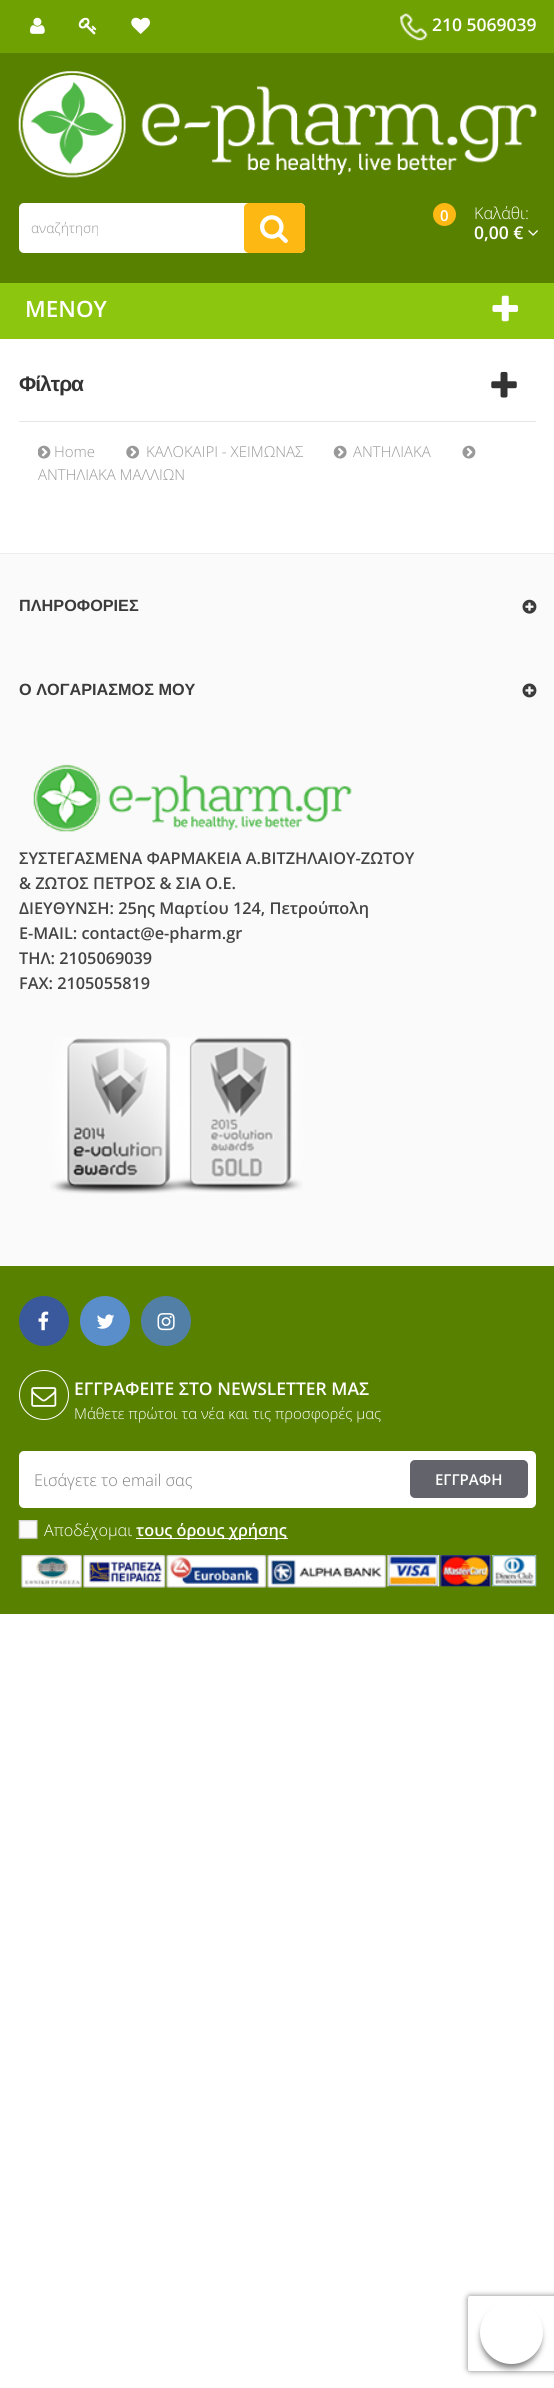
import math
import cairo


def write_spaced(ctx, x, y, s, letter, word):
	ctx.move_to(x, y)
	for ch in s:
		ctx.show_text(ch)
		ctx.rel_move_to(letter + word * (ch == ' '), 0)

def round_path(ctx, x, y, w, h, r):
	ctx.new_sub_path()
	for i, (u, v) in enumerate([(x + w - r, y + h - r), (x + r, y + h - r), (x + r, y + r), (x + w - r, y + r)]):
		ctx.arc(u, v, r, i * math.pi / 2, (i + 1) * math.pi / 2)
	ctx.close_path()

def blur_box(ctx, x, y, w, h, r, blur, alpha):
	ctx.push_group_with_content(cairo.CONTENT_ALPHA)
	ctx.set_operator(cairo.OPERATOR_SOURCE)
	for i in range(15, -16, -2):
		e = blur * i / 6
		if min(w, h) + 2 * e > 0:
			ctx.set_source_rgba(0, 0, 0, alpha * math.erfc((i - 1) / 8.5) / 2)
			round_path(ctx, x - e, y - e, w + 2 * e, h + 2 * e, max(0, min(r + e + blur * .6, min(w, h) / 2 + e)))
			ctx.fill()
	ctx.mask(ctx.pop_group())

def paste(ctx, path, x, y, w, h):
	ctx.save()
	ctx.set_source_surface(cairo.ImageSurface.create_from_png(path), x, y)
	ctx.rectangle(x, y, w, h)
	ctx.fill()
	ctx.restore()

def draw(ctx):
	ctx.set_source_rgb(1, 1, 1)
	ctx.paint()
	ctx.set_source_rgb(0.439, 0.631, 0.008)
	ctx.rectangle(0, 0, 554, 53)
	ctx.fill()
	paste(ctx, 'media/1.png', 30, 17, 15, 17)
	paste(ctx, 'media/2.png', 78, 17, 19, 18)
	paste(ctx, 'media/3.png', 131, 17, 19, 17)
	paste(ctx, 'media/4.png', 400, 13, 28, 28)
	ctx.select_font_face('Open Sans SemiBold')
	ctx.set_font_size(17.5)
	ctx.set_source_rgb(1, 1, 1)
	ctx.move_to(432, 31)
	ctx.show_text('210 5069039')
	ctx.set_source_rgb(0.349, 0.506, 0)
	ctx.rectangle(0, 53, 554, 230)
	ctx.fill()
	paste(ctx, 'media/5.png', 18, 71, 519, 107)
	ctx.set_source_rgb(1, 1, 1)
	round_path(ctx, 19, 203, 286, 50, 5)
	ctx.fill()
	ctx.save()
	ctx.rectangle(31, 218, 262, 18)
	ctx.clip()
	ctx.select_font_face('Open Sans Light')
	ctx.set_font_size(13.75)
	ctx.set_source_rgb(0.6, 0.6, 0.6)
	ctx.move_to(31, 233)
	ctx.show_text('αναζήτηση')
	ctx.restore()
	ctx.set_source_rgb(0.992, 0.722, 0.075)
	round_path(ctx, 244, 203, 61, 50, 5)
	ctx.fill()
	paste(ctx, 'media/6.png', 260, 215, 28, 28)
	ctx.arc(444.5, 214.5, 11.5, 0, 2 * math.pi)
	ctx.fill()
	ctx.set_font_size(15)
	ctx.set_source_rgb(1, 1, 1)
	ctx.move_to(440, 221)
	ctx.show_text('0')
	ctx.select_font_face('Open Sans Light')
	ctx.set_font_size(16.25)
	ctx.move_to(474, 219)
	ctx.show_text('Καλάθι:')
	ctx.select_font_face('Open Sans SemiBold')
	ctx.set_font_size(17.5)
	ctx.move_to(474, 239)
	ctx.show_text('0,00 €')
	paste(ctx, 'media/7.png', 528, 230, 10, 6)
	ctx.set_source_rgb(0.553, 0.776, 0.059)
	ctx.rectangle(0, 283, 554, 56)
	ctx.fill()
	ctx.set_font_size(22.5)
	ctx.set_source_rgb(1, 1, 1)
	ctx.move_to(25, 317)
	ctx.show_text('ΜΕΝΟΥ')
	paste(ctx, 'media/8.png', 492, 295, 27, 27)
	ctx.set_source_rgb(0.898, 0.898, 0.898)
	ctx.rectangle(19, 421, 517, 1)
	ctx.fill()
	ctx.select_font_face('Liberation Sans', cairo.FONT_SLANT_NORMAL, cairo.FONT_WEIGHT_BOLD)
	ctx.set_font_size(21)
	ctx.set_source_rgb(0.2, 0.2, 0.2)
	write_spaced(ctx, 19, 391, 'Φίλτρα', -1, 0)
	paste(ctx, 'media/9.png', 491, 371, 26, 27)
	paste(ctx, 'media/10.png', 38, 445, 13, 14)
	ctx.select_font_face('Open Sans Light')
	ctx.set_font_size(15)
	ctx.set_source_rgb(0.6, 0.6, 0.6)
	ctx.move_to(54, 457)
	ctx.show_text('Home')
	paste(ctx, 'media/11.png', 126, 445, 14, 14)
	ctx.move_to(146, 457)
	ctx.show_text('ΚΑΛΟΚΑΙΡΙ - ΧΕΙΜΩΝΑΣ')
	paste(ctx, 'media/12.png', 333, 445, 14, 14)
	ctx.move_to(353, 457)
	ctx.show_text('ΑΝΤΗΛΙΑΚΑ')
	paste(ctx, 'media/13.png', 462, 445, 14, 14)
	ctx.move_to(38, 480)
	ctx.show_text('ΑΝΤΗΛΙΑΚΑ ΜΑΛΛΙΩΝ')
	ctx.set_source_rgb(0.98, 0.98, 0.98)
	ctx.rectangle(0, 554, 554, 712)
	ctx.fill()
	ctx.set_source_rgb(0.929, 0.929, 0.929)
	ctx.rectangle(0, 553, 554, 1)
	ctx.fill()
	ctx.select_font_face('Liberation Sans', cairo.FONT_SLANT_NORMAL, cairo.FONT_WEIGHT_BOLD)
	ctx.set_font_size(16.25)
	ctx.set_source_rgb(0.231, 0.231, 0.231)
	ctx.move_to(19, 611)
	ctx.show_text('ΠΛΗΡΟΦΟΡΙΕΣ')
	paste(ctx, 'media/14.png', 522, 599, 15, 15)
	ctx.move_to(19, 695)
	ctx.show_text('Ο ΛΟΓΑΡΙΑΣΜΟΣ ΜΟΥ')
	paste(ctx, 'media/15.png', 522, 683, 15, 15)
	paste(ctx, 'media/16.png', 33, 764, 319, 68)
	ctx.select_font_face('Open Sans SemiBold')
	ctx.set_source_rgb(0.267, 0.267, 0.267)
	for x, y, s in [
		(19, 864, 'ΣΥΣΤΕΓΑΣΜΕΝΑ ΦΑΡΜΑΚΕΙΑ Α.ΒΙΤΖΗΛΑΙΟΥ-ΖΩΤΟΥ'),
		(19, 889, '& ΖΩΤΟΣ ΠΕΤΡΟΣ & ΣΙΑ Ο.Ε.'),
		(19, 914, 'ΔΙΕΥΘΥΝΣΗ: 25ης Μαρτίου 124, Πετρούπολη'),
		(19, 939, 'E-MAIL: contact@e-pharm.gr'),
		(19, 964, 'ΤΗΛ: 2105069039'),
		(19, 989, 'FAX: 2105055819'),
	]:
		ctx.move_to(x, y)
		ctx.show_text(s)
	paste(ctx, 'media/17.png', 50, 1037, 253, 157)
	ctx.set_source_rgb(0.349, 0.506, 0)
	ctx.rectangle(0, 1266, 554, 348)
	ctx.fill()
	ctx.set_source_rgb(0.227, 0.349, 0.612)
	ctx.arc(44, 1321, 25, 0, 2 * math.pi)
	ctx.fill()
	paste(ctx, 'media/18.png', 38, 1311, 11, 20)
	ctx.set_source_rgb(0.353, 0.557, 0.792)
	ctx.arc(105, 1321, 25, 0, 2 * math.pi)
	ctx.fill()
	paste(ctx, 'media/19.png', 97, 1314, 18, 15)
	ctx.set_source_rgb(0.322, 0.498, 0.651)
	ctx.arc(166, 1321, 25, 0, 2 * math.pi)
	ctx.fill()
	paste(ctx, 'media/20.png', 157, 1313, 18, 18)
	ctx.arc(44, 1395, 24.5, 0, 2 * math.pi)
	ctx.set_source_rgb(1, 1, 1)
	ctx.set_line_width(1)
	ctx.stroke()
	paste(ctx, 'media/21.png', 31, 1387, 26, 20)
	ctx.set_font_size(17.5)
	ctx.move_to(74, 1395)
	ctx.show_text('ΕΓΓΡΑΦΕΙΤΕ ΣΤΟ NEWSLETTER ΜΑΣ')
	ctx.select_font_face('Open Sans Light')
	ctx.set_font_size(15)
	ctx.move_to(74, 1419)
	ctx.show_text('Μάθετε πρώτοι τα νέα και τις προσφορές μας')
	round_path(ctx, 19, 1451, 517, 57, 5)
	ctx.fill()
	ctx.set_font_size(16.25)
	ctx.set_source_rgb(0.502, 0.502, 0.502)
	ctx.move_to(34, 1486)
	ctx.show_text('Εισάγετε το email σας')
	ctx.set_source_rgb(0.388, 0.388, 0.424)
	round_path(ctx, 410, 1460, 118, 38, 5)
	ctx.fill()
	ctx.select_font_face('Open Sans SemiBold')
	ctx.set_font_size(15)
	ctx.set_source_rgb(1, 1, 1)
	ctx.move_to(435, 1485)
	ctx.show_text('ΕΓΓΡΑΦΗ')
	paste(ctx, 'media/22.png', 18, 1520, 20, 19)
	ctx.select_font_face('Open Sans Light')
	ctx.set_font_size(16.25)
	ctx.move_to(44, 1536)
	ctx.show_text('Αποδέχομαι')
	ctx.rectangle(136, 1538, 152, 1)
	ctx.fill()
	ctx.select_font_face('Open Sans SemiBold')
	ctx.move_to(136, 1536)
	ctx.show_text('τους όρους χρήσης')
	paste(ctx, 'media/23.png', 21, 1555, 516, 33)
	ctx.save()
	ctx.set_fill_rule(cairo.FILL_RULE_EVEN_ODD)
	ctx.new_path()
	ctx.move_to(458, 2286)
	ctx.line_to(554, 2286)
	ctx.line_to(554, 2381)
	ctx.line_to(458, 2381)
	ctx.close_path()
	ctx.move_to(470.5, 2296)
	ctx.line_to(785.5, 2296)
	ctx.curve_to(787, 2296, 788, 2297, 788, 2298.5)
	ctx.line_to(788, 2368.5)
	ctx.curve_to(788, 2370, 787, 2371, 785.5, 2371)
	ctx.line_to(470.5, 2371)
	ctx.curve_to(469, 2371, 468, 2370, 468, 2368.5)
	ctx.line_to(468, 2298.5)
	ctx.curve_to(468, 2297, 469, 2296, 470.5, 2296)
	ctx.close_path()
	ctx.clip()
	ctx.set_source_rgb(0.502, 0.502, 0.502)
	blur_box(ctx, 468, 2296, 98, 75, 2.5, 3, 1)
	ctx.restore()
	ctx.set_source_rgb(0, 0, 0)
	blur_box(ctx, 481, 2308, 60, 60, 30, 3, 0.5)
	ctx.set_source_rgb(1, 1, 1)
	ctx.arc(511.5, 2332.5, 31.5, 0, 2 * math.pi)
	ctx.fill()


surface = cairo.ImageSurface(cairo.FORMAT_RGB24, 554, 2388)
ctx = cairo.Context(surface)
options = cairo.FontOptions()
options.set_hint_metrics(cairo.HINT_METRICS_OFF)
options.set_hint_style(cairo.HINT_STYLE_NONE)
ctx.set_font_options(options)
ctx.set_miter_limit(4)
draw(ctx)
surface.write_to_png('image.png')
